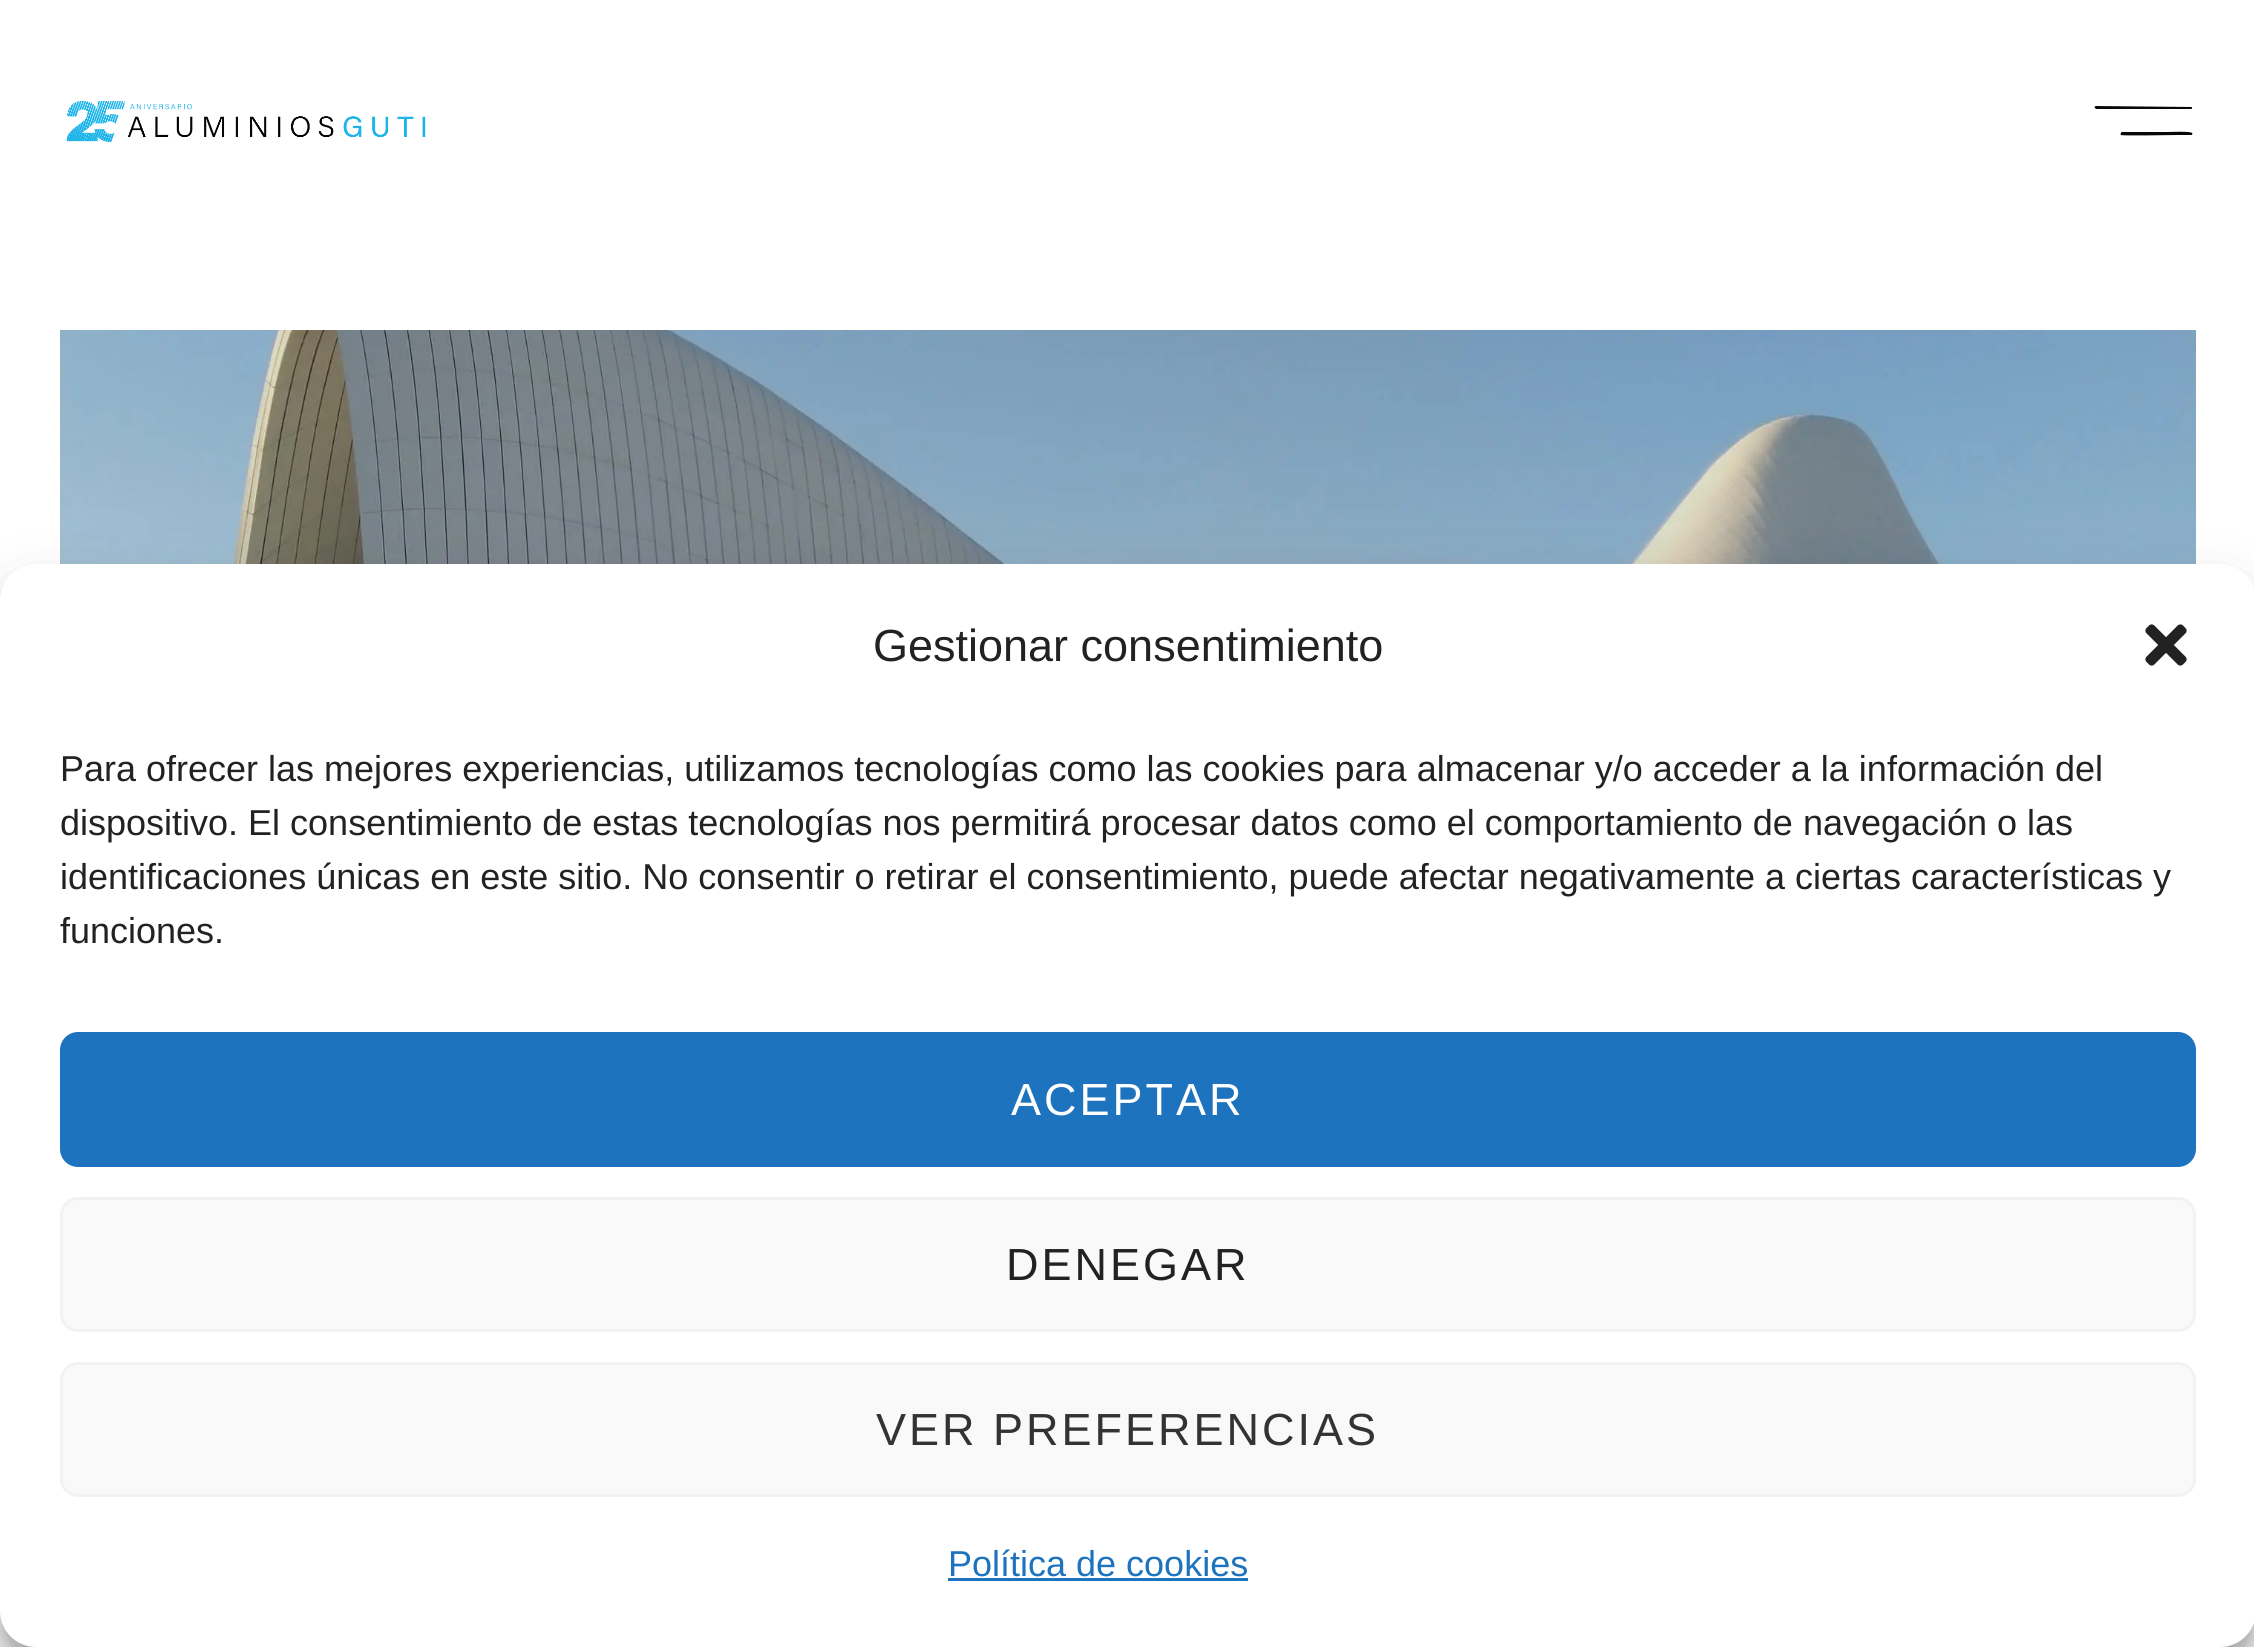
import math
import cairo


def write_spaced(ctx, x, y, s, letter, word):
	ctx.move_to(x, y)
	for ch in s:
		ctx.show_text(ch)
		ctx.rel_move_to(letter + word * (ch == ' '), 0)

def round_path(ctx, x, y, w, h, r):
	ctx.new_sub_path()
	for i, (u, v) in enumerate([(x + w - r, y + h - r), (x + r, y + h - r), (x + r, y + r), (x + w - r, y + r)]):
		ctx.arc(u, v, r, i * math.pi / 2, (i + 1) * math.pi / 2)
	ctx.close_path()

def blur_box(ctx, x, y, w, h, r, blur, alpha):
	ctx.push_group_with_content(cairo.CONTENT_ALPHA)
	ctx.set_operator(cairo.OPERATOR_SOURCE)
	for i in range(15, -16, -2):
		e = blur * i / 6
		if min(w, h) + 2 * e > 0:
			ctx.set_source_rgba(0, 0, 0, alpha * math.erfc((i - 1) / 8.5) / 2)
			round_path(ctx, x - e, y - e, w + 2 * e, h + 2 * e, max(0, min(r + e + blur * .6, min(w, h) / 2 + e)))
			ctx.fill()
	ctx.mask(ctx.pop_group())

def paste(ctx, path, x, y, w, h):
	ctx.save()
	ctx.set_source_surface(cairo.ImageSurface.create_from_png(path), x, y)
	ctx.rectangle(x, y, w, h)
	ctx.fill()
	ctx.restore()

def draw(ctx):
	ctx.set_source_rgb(1, 1, 1)
	ctx.paint()
	paste(ctx, 'media/1.png', 66, 101, 360, 42)
	ctx.set_source_rgb(0.039, 0.035, 0.035)
	ctx.new_path()
	ctx.move_to(2122, 132)
	ctx.curve_to(2121, 132, 2120, 134, 2121, 135)
	ctx.curve_to(2122, 136, 2174, 135, 2179, 135)
	ctx.line_to(2192, 135)
	ctx.curve_to(2192, 134, 2193, 133, 2192, 133)
	ctx.curve_to(2191, 131, 2170, 132, 2168, 132)
	ctx.close_path()
	ctx.move_to(2096, 106)
	ctx.curve_to(2095, 106, 2094, 107, 2095, 108)
	ctx.line_to(2096, 109)
	ctx.line_to(2191, 109)
	ctx.curve_to(2192, 109, 2192, 108, 2192, 108)
	ctx.line_to(2192, 107)
	ctx.close_path()
	ctx.fill()
	paste(ctx, 'media/2.png', 60, 330, 2136, 234)
	ctx.set_source_rgb(0, 0, 0)
	blur_box(ctx, 0, 582, 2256, 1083, 36, 9, 0.23)
	blur_box(ctx, 0, 594, 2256, 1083, 36, 30, 0.19)
	ctx.set_source_rgb(1, 1, 1)
	round_path(ctx, 0, 564, 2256, 1083, 36)
	ctx.fill()
	ctx.select_font_face('Liberation Sans')
	ctx.set_font_size(45)
	ctx.set_source_rgb(0.133, 0.133, 0.133)
	ctx.move_to(873, 661)
	ctx.show_text('Gestionar consentimiento')
	paste(ctx, 'media/3.png', 2145, 624, 42, 42)
	ctx.set_font_size(36)
	for x, y, s in [
		(60, 781, 'Para ofrecer las mejores experiencias, utilizamos tecnologías como las cookies para almacenar y/o acceder a la información del'),
		(60, 835, 'dispositivo. El consentimiento de estas tecnologías nos permitirá procesar datos como el comportamiento de navegación o las'),
		(60, 889, 'identificaciones únicas en este sitio. No consentir o retirar el consentimiento, puede afectar negativamente a ciertas características y'),
		(60, 943, 'funciones.'),
	]:
		ctx.move_to(x, y)
		ctx.show_text(s)
	ctx.set_source_rgb(0.118, 0.451, 0.745)
	round_path(ctx, 61.5, 1033.5, 2133, 132, 16.5)
	ctx.fill_preserve()
	ctx.set_line_width(3)
	ctx.stroke()
	ctx.set_font_size(45)
	ctx.set_source_rgb(1, 1, 1)
	write_spaced(ctx, 1011, 1115, 'ACEPTAR', 3, 0)
	ctx.set_source_rgb(0.976, 0.976, 0.976)
	round_path(ctx, 61.5, 1198.5, 2133, 132, 16.5)
	ctx.fill_preserve()
	ctx.set_source_rgb(0.949, 0.949, 0.949)
	ctx.stroke()
	ctx.set_source_rgb(0.133, 0.133, 0.133)
	write_spaced(ctx, 1006, 1280, 'DENEGAR', 3, 0)
	ctx.set_source_rgb(0.976, 0.976, 0.976)
	round_path(ctx, 61.5, 1363.5, 2133, 132, 16.5)
	ctx.fill_preserve()
	ctx.set_source_rgb(0.949, 0.949, 0.949)
	ctx.stroke()
	ctx.set_source_rgb(0.2, 0.2, 0.2)
	write_spaced(ctx, 876, 1445, 'VER PREFERENCIAS', 3, 0)
	ctx.set_font_size(36)
	ctx.set_source_rgb(0.118, 0.451, 0.745)
	ctx.move_to(948, 1576)
	ctx.show_text('Política de cookies')
	ctx.rectangle(948, 1578, 300, 3)
	ctx.fill()


surface = cairo.ImageSurface(cairo.FORMAT_RGB24, 2254, 1647)
ctx = cairo.Context(surface)
options = cairo.FontOptions()
options.set_hint_metrics(cairo.HINT_METRICS_OFF)
options.set_hint_style(cairo.HINT_STYLE_NONE)
ctx.set_font_options(options)
ctx.set_miter_limit(4)
draw(ctx)
surface.write_to_png('image.png')
